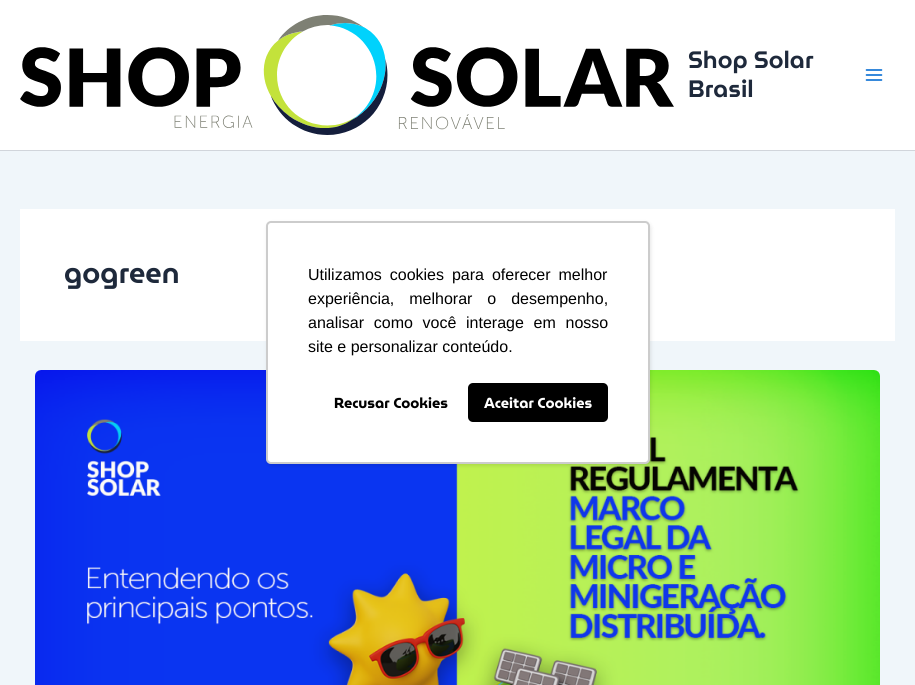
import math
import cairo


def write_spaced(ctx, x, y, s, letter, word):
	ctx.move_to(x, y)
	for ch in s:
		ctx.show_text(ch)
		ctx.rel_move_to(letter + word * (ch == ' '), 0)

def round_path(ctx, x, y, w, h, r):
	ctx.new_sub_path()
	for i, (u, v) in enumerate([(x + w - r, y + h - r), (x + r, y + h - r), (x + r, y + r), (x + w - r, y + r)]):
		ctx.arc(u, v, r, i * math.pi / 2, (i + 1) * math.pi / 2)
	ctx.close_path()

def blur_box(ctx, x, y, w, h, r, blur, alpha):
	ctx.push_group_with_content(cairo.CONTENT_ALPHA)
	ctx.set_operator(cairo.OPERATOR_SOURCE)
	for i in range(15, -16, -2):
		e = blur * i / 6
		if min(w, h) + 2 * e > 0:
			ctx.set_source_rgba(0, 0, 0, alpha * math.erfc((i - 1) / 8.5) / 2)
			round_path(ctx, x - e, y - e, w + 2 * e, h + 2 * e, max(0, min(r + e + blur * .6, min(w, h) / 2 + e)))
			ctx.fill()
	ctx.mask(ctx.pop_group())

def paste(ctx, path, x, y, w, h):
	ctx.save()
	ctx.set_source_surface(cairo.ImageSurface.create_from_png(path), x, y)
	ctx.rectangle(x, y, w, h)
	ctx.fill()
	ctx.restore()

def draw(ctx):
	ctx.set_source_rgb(0.941, 0.961, 0.98)
	ctx.paint()
	ctx.set_source_rgb(1, 1, 1)
	ctx.rectangle(0, 0, 915, 150)
	ctx.fill()
	ctx.set_source_rgb(0.82, 0.835, 0.859)
	ctx.rectangle(0, 150, 915, 1)
	ctx.fill()
	paste(ctx, 'media/1.png', 20, 15, 654, 120)
	ctx.select_font_face('MuseoModerno SemiBold')
	ctx.set_font_size(23.75)
	ctx.set_source_rgb(0.118, 0.161, 0.231)
	ctx.move_to(688, 68)
	ctx.show_text('Shop Solar')
	ctx.move_to(688, 97)
	ctx.show_text('Brasil')
	paste(ctx, 'media/2.png', 865, 69, 18, 12)
	ctx.set_source_rgb(1, 1, 1)
	ctx.rectangle(20, 209, 875, 132)
	ctx.fill()
	ctx.set_font_size(29)
	ctx.set_source_rgb(0.118, 0.161, 0.231)
	ctx.move_to(64, 283)
	ctx.show_text('gogreen')
	paste(ctx, 'media/3.png', 35, 370, 845, 315)
	ctx.set_source_rgb(0, 0, 0)
	blur_box(ctx, 267, 223, 384, 243, 5, 2, 0.1)
	ctx.set_source_rgb(1, 1, 1)
	round_path(ctx, 266, 221, 384, 243, 5)
	ctx.fill()
	round_path(ctx, 267, 222, 382, 241, 4)
	ctx.set_source_rgba(0, 0, 0, 0.2)
	ctx.stroke()
	ctx.select_font_face('Liberation Sans')
	ctx.set_font_size(16)
	ctx.set_source_rgb(0, 0, 0)
	write_spaced(ctx, 308, 280, 'Utilizamos cookies para oferecer melhor', 0, 3.5)
	write_spaced(ctx, 308, 304, 'experiência, melhorar o desempenho,', 0, 10.5)
	write_spaced(ctx, 308, 328, 'analisar como você interage em nosso', 0, 5.25)
	ctx.move_to(308, 352)
	ctx.show_text('site e personalizar conteúdo.')
	ctx.select_font_face('MuseoModerno', cairo.FONT_SLANT_NORMAL, cairo.FONT_WEIGHT_BOLD)
	ctx.set_font_size(14.5)
	ctx.move_to(334, 408)
	ctx.show_text('Recusar Cookies')
	round_path(ctx, 468, 383, 140, 39, 5)
	ctx.fill()
	ctx.set_source_rgb(1, 1, 1)
	ctx.move_to(484, 408)
	ctx.show_text('Aceitar Cookies')


surface = cairo.ImageSurface(cairo.FORMAT_RGB24, 915, 685)
ctx = cairo.Context(surface)
options = cairo.FontOptions()
options.set_hint_metrics(cairo.HINT_METRICS_OFF)
options.set_hint_style(cairo.HINT_STYLE_NONE)
ctx.set_font_options(options)
ctx.set_miter_limit(4)
draw(ctx)
surface.write_to_png('image.png')
